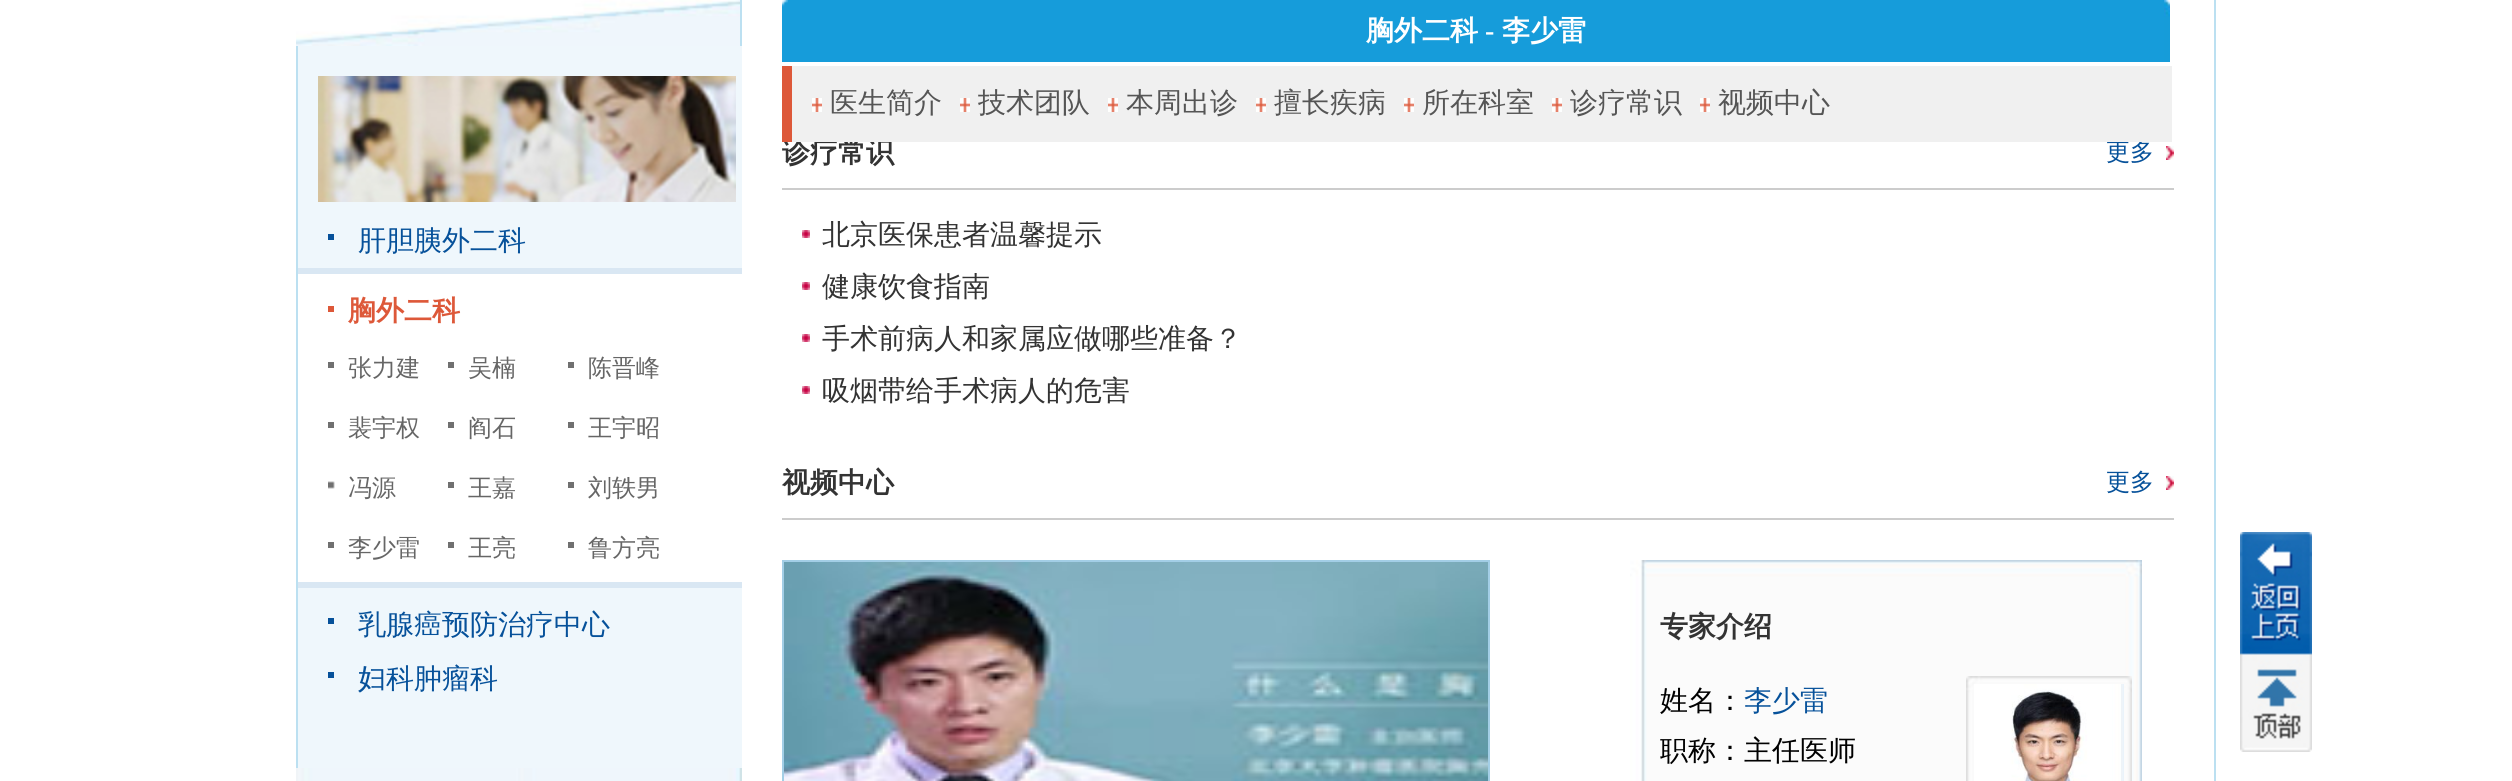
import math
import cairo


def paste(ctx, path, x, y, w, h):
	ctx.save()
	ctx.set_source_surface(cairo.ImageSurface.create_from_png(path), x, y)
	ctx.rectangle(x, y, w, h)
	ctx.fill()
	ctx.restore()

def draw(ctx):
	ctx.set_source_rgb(1, 1, 1)
	ctx.paint()
	paste(ctx, 'media/1.png', 296, 768, 446, 13)
	paste(ctx, 'media/2.png', 296, 0, 444, 46)
	ctx.set_source_rgb(0.737, 0.878, 0.945)
	ctx.rectangle(740, 0, 2, 46)
	ctx.fill()
	ctx.set_source_rgb(0.937, 0.965, 0.988)
	ctx.rectangle(298, 46, 444, 722)
	ctx.fill()
	ctx.set_source_rgb(0.737, 0.878, 0.945)
	ctx.rectangle(296, 46, 2, 722)
	ctx.fill()
	paste(ctx, 'media/3.png', 318, 76, 418, 126)
	ctx.set_source_rgb(0.027, 0.318, 0.604)
	ctx.rectangle(328, 234, 6, 6)
	ctx.fill()
	ctx.select_font_face('WenQuanYi Zen Hei Medium')
	ctx.set_font_size(28)
	ctx.move_to(358, 250)
	ctx.show_text('肝胆胰外二科')
	ctx.set_source_rgb(1, 1, 1)
	ctx.rectangle(298, 274, 444, 308)
	ctx.fill()
	ctx.set_source_rgb(0.851, 0.906, 0.953)
	ctx.rectangle(298, 268, 444, 6)
	ctx.rectangle(298, 582, 444, 6)
	ctx.fill()
	ctx.select_font_face('WenQuanYi Zen Hei', cairo.FONT_SLANT_NORMAL, cairo.FONT_WEIGHT_BOLD)
	ctx.set_source_rgb(0.867, 0.345, 0.224)
	ctx.move_to(348, 320)
	ctx.show_text('胸外二科')
	ctx.rectangle(328, 306, 6, 6)
	ctx.fill()
	ctx.set_source_rgb(0.439, 0.439, 0.439)
	ctx.rectangle(328, 362, 6, 6)
	ctx.fill()
	ctx.select_font_face('WenQuanYi Zen Hei Medium')
	ctx.set_font_size(24)
	ctx.set_source_rgb(0.4, 0.4, 0.4)
	ctx.move_to(348, 376)
	ctx.show_text('张力建')
	ctx.set_source_rgb(0.439, 0.439, 0.439)
	ctx.rectangle(448, 362, 6, 6)
	ctx.fill()
	ctx.set_source_rgb(0.4, 0.4, 0.4)
	ctx.move_to(468, 376)
	ctx.show_text('吴楠')
	ctx.set_source_rgb(0.439, 0.439, 0.439)
	ctx.rectangle(568, 362, 6, 6)
	ctx.fill()
	ctx.set_source_rgb(0.4, 0.4, 0.4)
	ctx.move_to(588, 376)
	ctx.show_text('陈晋峰')
	ctx.set_source_rgb(0.439, 0.439, 0.439)
	ctx.rectangle(328, 422, 6, 6)
	ctx.fill()
	ctx.set_source_rgb(0.4, 0.4, 0.4)
	ctx.move_to(348, 436)
	ctx.show_text('裴宇权')
	ctx.set_source_rgb(0.439, 0.439, 0.439)
	ctx.rectangle(448, 422, 6, 6)
	ctx.fill()
	ctx.set_source_rgb(0.4, 0.4, 0.4)
	ctx.move_to(468, 436)
	ctx.show_text('阎石')
	ctx.set_source_rgb(0.439, 0.439, 0.439)
	ctx.rectangle(568, 422, 6, 6)
	ctx.fill()
	ctx.set_source_rgb(0.4, 0.4, 0.4)
	ctx.move_to(588, 436)
	ctx.show_text('王宇昭')
	paste(ctx, 'media/4.png', 328, 481, 7, 8)
	ctx.move_to(348, 496)
	ctx.show_text('冯源')
	ctx.set_source_rgb(0.439, 0.439, 0.439)
	ctx.rectangle(448, 482, 6, 6)
	ctx.fill()
	ctx.set_source_rgb(0.4, 0.4, 0.4)
	ctx.move_to(468, 496)
	ctx.show_text('王嘉')
	ctx.set_source_rgb(0.439, 0.439, 0.439)
	ctx.rectangle(568, 482, 6, 6)
	ctx.fill()
	ctx.set_source_rgb(0.4, 0.4, 0.4)
	ctx.move_to(588, 496)
	ctx.show_text('刘轶男')
	ctx.set_source_rgb(0.439, 0.439, 0.439)
	ctx.rectangle(328, 542, 6, 6)
	ctx.fill()
	ctx.set_source_rgb(0.4, 0.4, 0.4)
	ctx.move_to(348, 556)
	ctx.show_text('李少雷')
	ctx.set_source_rgb(0.439, 0.439, 0.439)
	ctx.rectangle(448, 542, 6, 6)
	ctx.fill()
	ctx.set_source_rgb(0.4, 0.4, 0.4)
	ctx.move_to(468, 556)
	ctx.show_text('王亮')
	ctx.set_source_rgb(0.439, 0.439, 0.439)
	ctx.rectangle(568, 542, 6, 6)
	ctx.fill()
	ctx.set_source_rgb(0.4, 0.4, 0.4)
	ctx.move_to(588, 556)
	ctx.show_text('鲁方亮')
	ctx.set_source_rgb(0.027, 0.318, 0.604)
	ctx.rectangle(328, 618, 6, 6)
	ctx.fill()
	ctx.set_font_size(28)
	ctx.move_to(358, 634)
	ctx.show_text('乳腺癌预防治疗中心')
	ctx.rectangle(328, 672, 6, 6)
	ctx.fill()
	ctx.move_to(358, 688)
	ctx.show_text('妇科肿瘤科')
	ctx.set_source_rgb(0.737, 0.878, 0.945)
	ctx.rectangle(2214, 0, 2, 781)
	ctx.fill()
	paste(ctx, 'media/5.png', 782, 0, 6, 62)
	ctx.set_source_rgb(0.086, 0.612, 0.855)
	ctx.rectangle(788, 0, 1376, 62)
	ctx.fill()
	ctx.select_font_face('WenQuanYi Zen Hei', cairo.FONT_SLANT_NORMAL, cairo.FONT_WEIGHT_BOLD)
	ctx.set_source_rgb(1, 1, 1)
	ctx.move_to(1366, 40)
	ctx.show_text('胸外二科')
	ctx.select_font_face('Liberation Serif', cairo.FONT_SLANT_NORMAL, cairo.FONT_WEIGHT_BOLD)
	ctx.move_to(1485, 40)
	ctx.show_text('-')
	ctx.select_font_face('WenQuanYi Zen Hei', cairo.FONT_SLANT_NORMAL, cairo.FONT_WEIGHT_BOLD)
	ctx.move_to(1502, 40)
	ctx.show_text('李少雷')
	paste(ctx, 'media/6.png', 2164, 0, 6, 62)
	ctx.set_source_rgb(0.2, 0.2, 0.2)
	ctx.move_to(782, 162)
	ctx.show_text('诊疗常识')
	ctx.select_font_face('WenQuanYi Zen Hei Medium')
	ctx.set_font_size(24)
	ctx.set_source_rgb(0.027, 0.318, 0.604)
	ctx.move_to(2106, 160)
	ctx.show_text('更多')
	ctx.set_source_rgb(0.941, 0.941, 0.941)
	ctx.rectangle(792, 66, 1380, 76)
	ctx.fill()
	ctx.set_source_rgb(0.867, 0.345, 0.224)
	ctx.rectangle(782, 66, 10, 76)
	ctx.fill()
	paste(ctx, 'media/7.png', 812, 98, 10, 14)
	ctx.set_font_size(28)
	ctx.set_source_rgb(0.333, 0.333, 0.333)
	ctx.move_to(830, 112)
	ctx.show_text('医生简介')
	paste(ctx, 'media/7.png', 960, 98, 10, 14)
	ctx.move_to(978, 112)
	ctx.show_text('技术团队')
	paste(ctx, 'media/7.png', 1108, 98, 10, 14)
	ctx.move_to(1126, 112)
	ctx.show_text('本周出诊')
	paste(ctx, 'media/7.png', 1256, 98, 10, 14)
	ctx.move_to(1274, 112)
	ctx.show_text('擅长疾病')
	paste(ctx, 'media/7.png', 1404, 98, 10, 14)
	ctx.move_to(1422, 112)
	ctx.show_text('所在科室')
	paste(ctx, 'media/7.png', 1552, 98, 10, 14)
	ctx.move_to(1570, 112)
	ctx.show_text('诊疗常识')
	paste(ctx, 'media/7.png', 1700, 98, 10, 14)
	ctx.move_to(1718, 112)
	ctx.show_text('视频中心')
	ctx.set_source_rgb(0.8, 0.8, 0.8)
	ctx.rectangle(782, 188, 1392, 2)
	ctx.fill()
	paste(ctx, 'media/8.png', 2166, 146, 8, 14)
	paste(ctx, 'media/9.png', 802, 230, 8, 8)
	ctx.set_source_rgb(0.2, 0.2, 0.2)
	ctx.move_to(822, 244)
	ctx.show_text('北京医保患者温馨提示')
	paste(ctx, 'media/9.png', 802, 282, 8, 8)
	ctx.move_to(822, 296)
	ctx.show_text('健康饮食指南')
	paste(ctx, 'media/9.png', 802, 334, 8, 8)
	ctx.move_to(822, 348)
	ctx.show_text('手术前病人和家属应做哪些准备？')
	paste(ctx, 'media/9.png', 802, 386, 8, 8)
	ctx.move_to(822, 400)
	ctx.show_text('吸烟带给手术病人的危害')
	ctx.set_source_rgb(0.8, 0.8, 0.8)
	ctx.rectangle(782, 518, 1392, 2)
	ctx.fill()
	ctx.select_font_face('WenQuanYi Zen Hei', cairo.FONT_SLANT_NORMAL, cairo.FONT_WEIGHT_BOLD)
	ctx.set_source_rgb(0.2, 0.2, 0.2)
	ctx.move_to(782, 492)
	ctx.show_text('视频中心')
	paste(ctx, 'media/8.png', 2166, 476, 8, 14)
	ctx.select_font_face('WenQuanYi Zen Hei Medium')
	ctx.set_font_size(24)
	ctx.set_source_rgb(0.027, 0.318, 0.604)
	ctx.move_to(2106, 490)
	ctx.show_text('更多')
	ctx.rectangle(783, 561, 706, 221)
	ctx.set_source_rgb(0.639, 0.808, 0.902)
	ctx.stroke()
	paste(ctx, 'media/10.png', 784, 562, 704, 219)
	paste(ctx, 'media/11.png', 1630, 560, 512, 221)
	ctx.select_font_face('WenQuanYi Zen Hei', cairo.FONT_SLANT_NORMAL, cairo.FONT_WEIGHT_BOLD)
	ctx.set_font_size(28)
	ctx.set_source_rgb(0.2, 0.2, 0.2)
	ctx.move_to(1660, 636)
	ctx.show_text('专家介绍')
	ctx.select_font_face('WenQuanYi Zen Hei Medium')
	ctx.set_source_rgb(0, 0, 0)
	ctx.move_to(1660, 710)
	ctx.show_text('姓名：')
	ctx.set_source_rgb(0.027, 0.318, 0.604)
	ctx.move_to(1744, 710)
	ctx.show_text('李少雷')
	paste(ctx, 'media/12.png', 1966, 676, 166, 105)
	paste(ctx, 'media/13.png', 1974, 684, 150, 97)
	ctx.set_source_rgb(0, 0, 0)
	ctx.move_to(1660, 760)
	ctx.show_text('职称：主任医师')
	paste(ctx, 'media/14.png', 2240, 532, 72, 220)


surface = cairo.ImageSurface(cairo.FORMAT_RGB24, 2512, 781)
ctx = cairo.Context(surface)
options = cairo.FontOptions()
options.set_hint_metrics(cairo.HINT_METRICS_OFF)
options.set_hint_style(cairo.HINT_STYLE_NONE)
ctx.set_font_options(options)
ctx.set_miter_limit(4)
draw(ctx)
surface.write_to_png('image.png')
